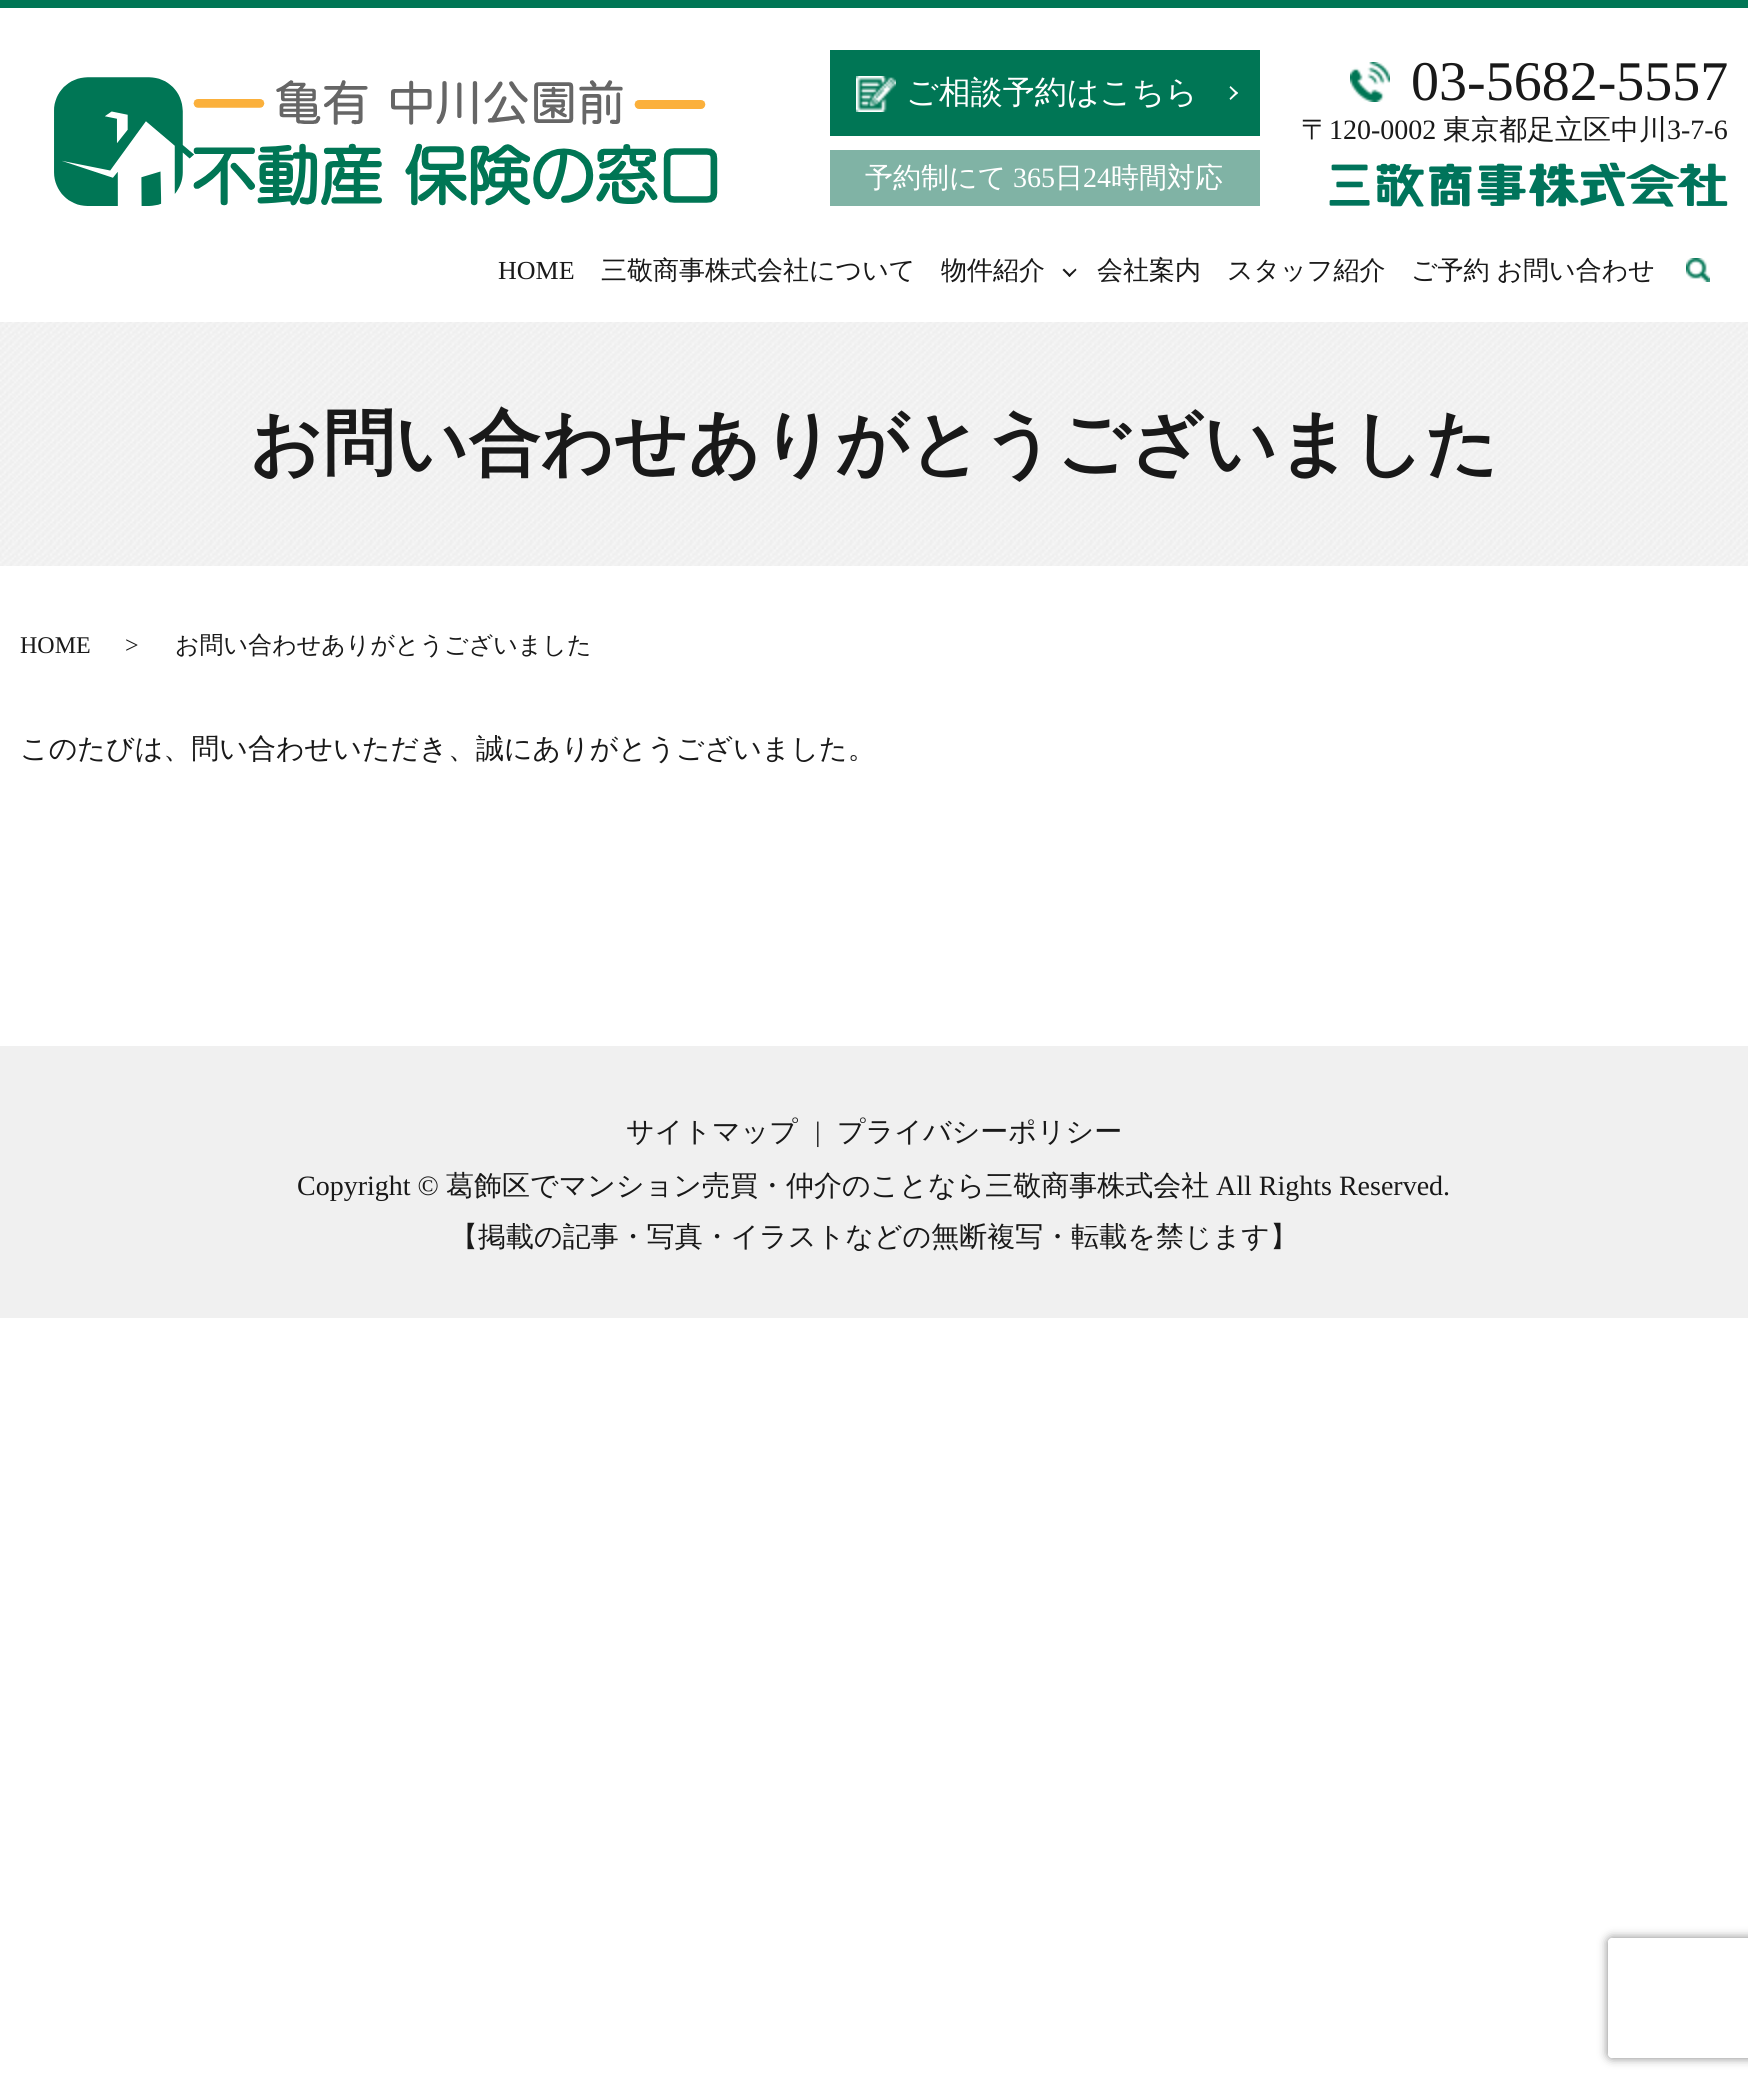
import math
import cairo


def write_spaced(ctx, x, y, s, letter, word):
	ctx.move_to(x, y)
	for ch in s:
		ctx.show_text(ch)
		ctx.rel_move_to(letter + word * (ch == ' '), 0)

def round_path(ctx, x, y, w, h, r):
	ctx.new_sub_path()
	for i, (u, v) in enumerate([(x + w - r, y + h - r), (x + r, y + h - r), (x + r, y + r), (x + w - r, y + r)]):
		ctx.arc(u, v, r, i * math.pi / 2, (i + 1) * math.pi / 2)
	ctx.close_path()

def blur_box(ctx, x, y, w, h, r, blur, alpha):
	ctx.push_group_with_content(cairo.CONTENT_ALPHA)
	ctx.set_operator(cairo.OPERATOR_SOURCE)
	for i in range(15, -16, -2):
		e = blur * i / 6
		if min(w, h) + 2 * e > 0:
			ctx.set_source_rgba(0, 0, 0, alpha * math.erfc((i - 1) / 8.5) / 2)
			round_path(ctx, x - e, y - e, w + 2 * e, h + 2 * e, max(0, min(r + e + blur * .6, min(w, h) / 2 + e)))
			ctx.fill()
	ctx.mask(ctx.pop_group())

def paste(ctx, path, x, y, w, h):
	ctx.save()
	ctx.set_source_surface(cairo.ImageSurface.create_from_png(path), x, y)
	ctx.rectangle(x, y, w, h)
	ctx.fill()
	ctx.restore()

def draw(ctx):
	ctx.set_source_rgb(1, 1, 1)
	ctx.paint()
	ctx.set_source_rgb(0, 0.463, 0.333)
	ctx.rectangle(0, 0, 1748, 8)
	ctx.fill()
	ctx.rectangle(830, 50, 430, 86)
	ctx.fill()
	paste(ctx, 'media/1.png', 856, 76, 40, 36)
	ctx.select_font_face('WenQuanYi Zen Hei Medium')
	ctx.set_font_size(32)
	ctx.set_source_rgb(1, 1, 1)
	ctx.move_to(906, 103)
	ctx.show_text('ご相談予約はこちら')
	ctx.new_path()
	ctx.move_to(1230.5, 86)
	ctx.line_to(1238, 93)
	ctx.line_to(1236.5, 94.5)
	ctx.line_to(1229.5, 87.5)
	ctx.close_path()
	ctx.fill()
	ctx.new_path()
	ctx.move_to(1236.5, 91.5)
	ctx.line_to(1238, 93)
	ctx.line_to(1230.5, 100)
	ctx.line_to(1229.5, 98.5)
	ctx.close_path()
	ctx.fill()
	ctx.set_source_rgb(0.502, 0.702, 0.647)
	ctx.rectangle(830, 150, 430, 56)
	ctx.fill()
	ctx.set_font_size(28)
	ctx.set_source_rgb(1, 1, 1)
	ctx.move_to(865, 187)
	ctx.show_text('予約制にて')
	ctx.select_font_face('Liberation Serif')
	ctx.move_to(1013, 187)
	ctx.show_text('365')
	ctx.select_font_face('WenQuanYi Zen Hei Medium')
	ctx.move_to(1055, 187)
	ctx.show_text('日')
	ctx.select_font_face('Liberation Serif')
	ctx.move_to(1083, 187)
	ctx.show_text('24')
	ctx.select_font_face('WenQuanYi Zen Hei Medium')
	ctx.move_to(1111, 187)
	ctx.show_text('時間対応')
	paste(ctx, 'media/2.png', 1350, 62, 40, 40)
	ctx.select_font_face('Liberation Serif')
	ctx.set_font_size(56)
	ctx.set_source_rgb(0.098, 0.098, 0.098)
	ctx.move_to(1411, 100)
	ctx.show_text('03-5682-5557')
	ctx.select_font_face('WenQuanYi Zen Hei Medium')
	ctx.set_font_size(28)
	ctx.move_to(1301, 139)
	ctx.show_text('〒')
	ctx.select_font_face('Liberation Serif')
	ctx.move_to(1329, 139)
	ctx.show_text('120-0002')
	ctx.select_font_face('WenQuanYi Zen Hei Medium')
	ctx.move_to(1443, 139)
	ctx.show_text('東京都足立区中川')
	ctx.select_font_face('Liberation Serif')
	ctx.move_to(1667, 139)
	ctx.show_text('3-7-6')
	paste(ctx, 'media/3.png', 1329, 162, 399, 45)
	paste(ctx, 'media/4.png', 54, 77, 664, 129)
	ctx.set_font_size(26)
	ctx.move_to(498, 279)
	ctx.show_text('HOME')
	ctx.select_font_face('WenQuanYi Zen Hei Medium')
	ctx.move_to(601, 279)
	ctx.show_text('三敬商事株式会社について')
	ctx.move_to(941, 279)
	ctx.show_text('物件紹介')
	ctx.new_path()
	ctx.move_to(1076.5, 270)
	ctx.line_to(1069.5, 277)
	ctx.line_to(1068, 275.5)
	ctx.line_to(1075.5, 268.5)
	ctx.close_path()
	ctx.fill()
	ctx.new_path()
	ctx.move_to(1071, 275.5)
	ctx.line_to(1069.5, 277)
	ctx.line_to(1062.5, 270)
	ctx.line_to(1064, 268.5)
	ctx.close_path()
	ctx.fill()
	ctx.move_to(1097, 279)
	ctx.show_text('会社案内')
	ctx.move_to(1227, 279)
	ctx.show_text('スタッフ紹介')
	write_spaced(ctx, 1411, 279, 'ご予約 お問い合わせ', 0, -1)
	paste(ctx, 'media/5.png', 1686, 258, 24, 24)
	paste(ctx, 'media/6.png', 0, 322, 1748, 244)
	ctx.select_font_face('WenQuanYi Zen Hei', cairo.FONT_SLANT_NORMAL, cairo.FONT_WEIGHT_BOLD)
	ctx.set_font_size(72)
	ctx.move_to(249, 468)
	ctx.show_text('お問い合わせありがとうございました')
	ctx.select_font_face('Liberation Serif')
	ctx.set_font_size(24)
	ctx.move_to(20, 653)
	ctx.show_text('HOME')
	ctx.move_to(125, 653)
	ctx.show_text('>')
	ctx.select_font_face('WenQuanYi Zen Hei Medium')
	ctx.move_to(175, 653)
	ctx.show_text('お問い合わせありがとうございました')
	ctx.set_font_size(28)
	ctx.move_to(20, 758)
	ctx.show_text('このたびは、問い合わせいただき、誠にありがとうございました。')
	ctx.set_source_rgb(0.941, 0.941, 0.941)
	ctx.rectangle(0, 1046, 1748, 272)
	ctx.fill()
	ctx.set_source_rgb(0.098, 0.098, 0.098)
	ctx.move_to(626, 1141)
	ctx.show_text('サイトマップ')
	ctx.select_font_face('Liberation Serif')
	ctx.move_to(815, 1141)
	ctx.show_text('|')
	ctx.select_font_face('WenQuanYi Zen Hei Medium')
	ctx.move_to(837, 1141)
	ctx.show_text('プライバシーポリシー')
	ctx.select_font_face('Liberation Serif')
	ctx.move_to(297, 1195)
	ctx.show_text('Copyright ©')
	ctx.select_font_face('WenQuanYi Zen Hei Medium')
	ctx.move_to(446, 1195)
	ctx.show_text('葛飾区でマンション売買・仲介のことなら三敬商事株式会社')
	ctx.select_font_face('Liberation Serif')
	ctx.move_to(1216, 1195)
	ctx.show_text('All Rights Reserved.')
	ctx.select_font_face('WenQuanYi Zen Hei Medium')
	ctx.move_to(450, 1246)
	ctx.show_text('【掲載の記事・写真・イラストなどの無断複写・転載を禁じます】')
	ctx.save()
	ctx.set_fill_rule(cairo.FILL_RULE_EVEN_ODD)
	ctx.new_path()
	ctx.move_to(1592, 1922)
	ctx.line_to(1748, 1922)
	ctx.line_to(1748, 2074)
	ctx.line_to(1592, 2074)
	ctx.close_path()
	ctx.move_to(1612, 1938)
	ctx.line_to(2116, 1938)
	ctx.curve_to(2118, 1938, 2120, 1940, 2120, 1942)
	ctx.line_to(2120, 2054)
	ctx.curve_to(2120, 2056, 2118, 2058, 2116, 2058)
	ctx.line_to(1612, 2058)
	ctx.curve_to(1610, 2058, 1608, 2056, 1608, 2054)
	ctx.line_to(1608, 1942)
	ctx.curve_to(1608, 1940, 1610, 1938, 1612, 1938)
	ctx.close_path()
	ctx.clip()
	ctx.set_source_rgb(0.502, 0.502, 0.502)
	blur_box(ctx, 1608, 1938, 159, 120, 4, 5, 1)
	ctx.restore()


surface = cairo.ImageSurface(cairo.FORMAT_RGB24, 1748, 2086)
ctx = cairo.Context(surface)
options = cairo.FontOptions()
options.set_hint_metrics(cairo.HINT_METRICS_OFF)
options.set_hint_style(cairo.HINT_STYLE_NONE)
ctx.set_font_options(options)
ctx.set_miter_limit(4)
draw(ctx)
surface.write_to_png('image.png')
